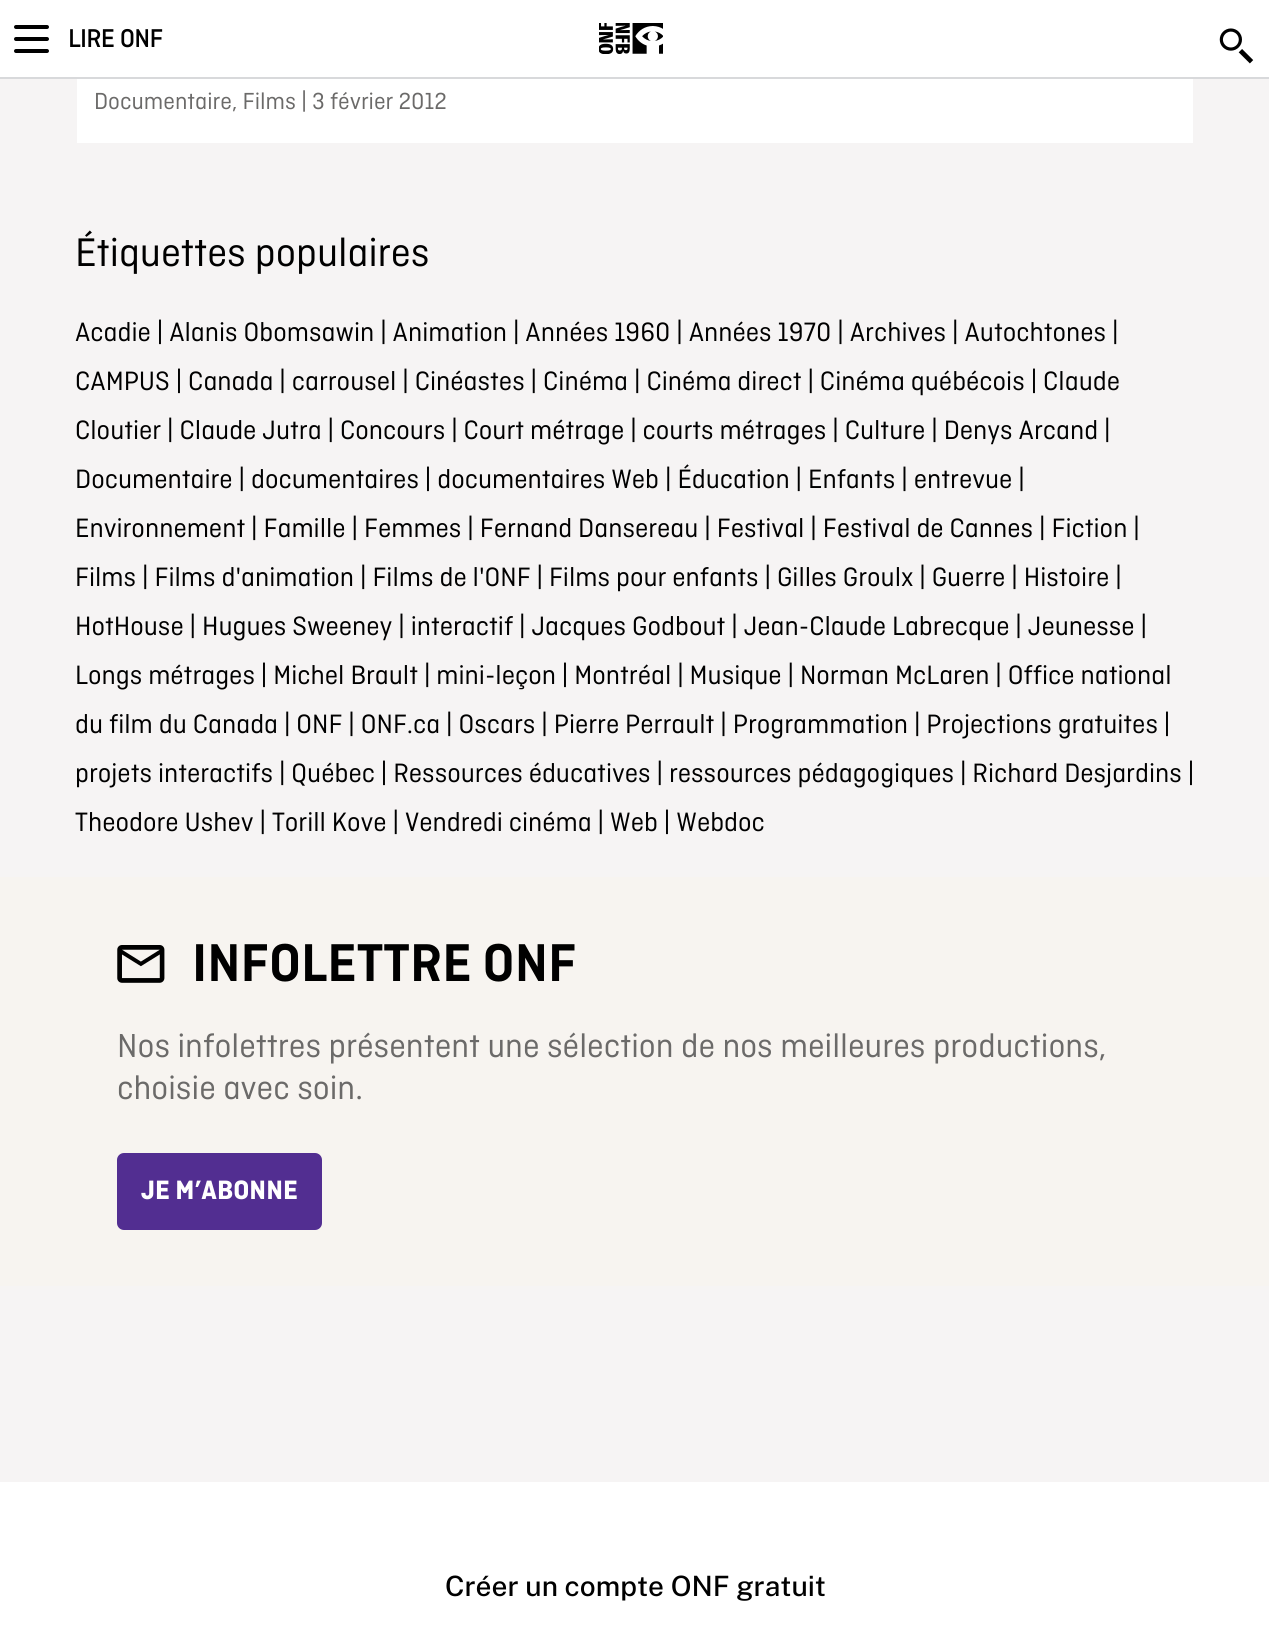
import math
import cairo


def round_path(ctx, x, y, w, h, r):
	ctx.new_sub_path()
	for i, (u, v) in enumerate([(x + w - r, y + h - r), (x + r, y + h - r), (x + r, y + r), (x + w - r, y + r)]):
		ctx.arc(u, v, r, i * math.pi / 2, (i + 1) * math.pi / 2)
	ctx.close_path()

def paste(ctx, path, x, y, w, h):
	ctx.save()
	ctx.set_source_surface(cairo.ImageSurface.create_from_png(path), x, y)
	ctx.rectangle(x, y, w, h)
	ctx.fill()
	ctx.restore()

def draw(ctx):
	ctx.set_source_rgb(0.961, 0.957, 0.957)
	ctx.paint()
	ctx.set_source_rgb(1, 1, 1)
	ctx.rectangle(0, 0, 1269, 77)
	ctx.fill()
	ctx.set_source_rgb(0.847, 0.851, 0.859)
	ctx.rectangle(0, 77, 1269, 2)
	ctx.fill()
	ctx.set_source_rgb(0, 0, 0)
	round_path(ctx, 14, 25, 35, 4, 2)
	ctx.fill()
	round_path(ctx, 14, 37, 35, 4, 2)
	ctx.fill()
	round_path(ctx, 14, 49, 35, 4, 2)
	ctx.fill()
	ctx.select_font_face('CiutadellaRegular', cairo.FONT_SLANT_NORMAL, cairo.FONT_WEIGHT_BOLD)
	ctx.set_font_size(26)
	ctx.move_to(68, 47)
	ctx.show_text('LIRE ONF')
	paste(ctx, 'media/1.png', 599, 23, 64, 31)
	paste(ctx, 'media/2.png', 1219, 28, 35, 36)
	ctx.set_source_rgb(1, 1, 1)
	ctx.rectangle(77, 79, 1116, 64)
	ctx.fill()
	ctx.select_font_face('CiutadellaRegular')
	ctx.set_font_size(24.5)
	ctx.set_source_rgb(0.42, 0.416, 0.412)
	ctx.move_to(94, 109)
	ctx.show_text('Documentaire, Films | 3 février 2012')
	ctx.set_font_size(42)
	ctx.set_source_rgb(0, 0, 0)
	ctx.move_to(75, 266)
	ctx.show_text('Étiquettes populaires')
	ctx.set_font_size(28)
	for x, y, s in [
		(75, 341, 'Acadie | Alanis Obomsawin | Animation | Années 1960 | Années 1970 | Archives | Autochtones |'),
		(75, 390, 'CAMPUS | Canada | carrousel | Cinéastes | Cinéma | Cinéma direct | Cinéma québécois | Claude'),
		(75, 439, 'Cloutier | Claude Jutra | Concours | Court métrage | courts métrages | Culture | Denys Arcand |'),
		(75, 488, 'Documentaire | documentaires | documentaires Web | Éducation | Enfants | entrevue |'),
		(75, 537, 'Environnement | Famille | Femmes | Fernand Dansereau | Festival | Festival de Cannes | Fiction |'),
		(75, 586, 'Films | Films d\'animation | Films de l\'ONF | Films pour enfants | Gilles Groulx | Guerre | Histoire |'),
		(75, 635, 'HotHouse | Hugues Sweeney | interactif | Jacques Godbout | Jean-Claude Labrecque | Jeunesse |'),
		(75, 684, 'Longs métrages | Michel Brault | mini-leçon | Montréal | Musique | Norman McLaren | Office national'),
		(75, 733, 'du film du Canada | ONF | ONF.ca | Oscars | Pierre Perrault | Programmation | Projections gratuites |'),
		(75, 782, 'projets interactifs | Québec | Ressources éducatives | ressources pédagogiques | Richard Desjardins |'),
		(75, 831, 'Theodore Ushev | Torill Kove | Vendredi cinéma | Web | Webdoc'),
	]:
		ctx.move_to(x, y)
		ctx.show_text(s)
	ctx.set_source_rgb(0.965, 0.957, 0.941)
	ctx.rectangle(0, 877, 1269, 409)
	ctx.fill()
	paste(ctx, 'media/3.png', 117, 945, 48, 38)
	ctx.select_font_face('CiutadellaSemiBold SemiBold')
	ctx.set_font_size(56)
	ctx.set_source_rgb(0, 0, 0)
	ctx.move_to(192, 981)
	ctx.show_text('INFOLETTRE ONF')
	ctx.select_font_face('CiutadellaRegular')
	ctx.set_font_size(35)
	ctx.set_source_rgb(0.42, 0.416, 0.412)
	ctx.move_to(117, 1057)
	ctx.show_text('Nos infolettres présentent une sélection de nos meilleures productions,')
	ctx.move_to(117, 1099)
	ctx.show_text('choisie avec soin.')
	ctx.set_source_rgb(0.322, 0.18, 0.569)
	round_path(ctx, 119, 1155, 201, 73, 5)
	ctx.fill_preserve()
	ctx.set_line_width(4)
	ctx.stroke()
	ctx.select_font_face('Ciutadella', cairo.FONT_SLANT_NORMAL, cairo.FONT_WEIGHT_BOLD)
	ctx.set_font_size(28)
	ctx.set_source_rgb(1, 1, 1)
	ctx.move_to(141, 1199)
	ctx.show_text('JE M’ABONNE')
	ctx.rectangle(0, 1482, 1269, 146)
	ctx.fill()
	ctx.select_font_face('Public Sans Medium')
	ctx.set_source_rgb(0, 0, 0)
	ctx.move_to(445, 1596)
	ctx.show_text('Créer un compte ONF gratuit')


surface = cairo.ImageSurface(cairo.FORMAT_RGB24, 1269, 1628)
ctx = cairo.Context(surface)
options = cairo.FontOptions()
options.set_hint_metrics(cairo.HINT_METRICS_OFF)
options.set_hint_style(cairo.HINT_STYLE_NONE)
ctx.set_font_options(options)
ctx.set_miter_limit(4)
draw(ctx)
surface.write_to_png('image.png')
